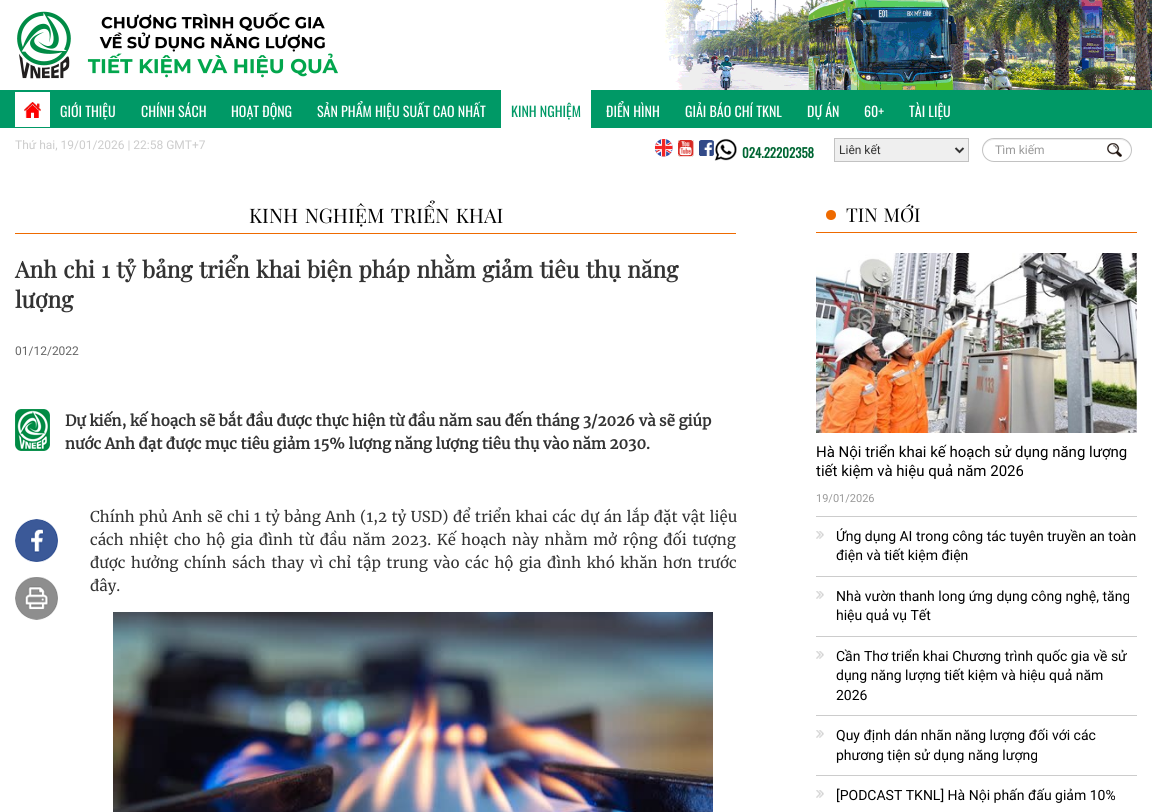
import math
import cairo


def write_spaced(ctx, x, y, s, letter, word):
	ctx.move_to(x, y)
	for ch in s:
		ctx.show_text(ch)
		ctx.rel_move_to(letter + word * (ch == ' '), 0)

def round_path(ctx, x, y, w, h, r):
	ctx.new_sub_path()
	for i, (u, v) in enumerate([(x + w - r, y + h - r), (x + r, y + h - r), (x + r, y + r), (x + w - r, y + r)]):
		ctx.arc(u, v, r, i * math.pi / 2, (i + 1) * math.pi / 2)
	ctx.close_path()

def paste(ctx, path, x, y, w, h):
	ctx.save()
	ctx.set_source_surface(cairo.ImageSurface.create_from_png(path), x, y)
	ctx.rectangle(x, y, w, h)
	ctx.fill()
	ctx.restore()

def draw(ctx):
	ctx.set_source_rgb(1, 1, 1)
	ctx.paint()
	paste(ctx, 'media/1.png', 17, 11, 321, 68)
	paste(ctx, 'media/2.png', 664, 0, 488, 90)
	ctx.set_source_rgb(0, 0.6, 0.4)
	ctx.rectangle(0, 90, 1152, 38)
	ctx.fill()
	ctx.set_source_rgb(1, 1, 1)
	ctx.rectangle(15, 92, 35, 35)
	ctx.fill()
	paste(ctx, 'media/3.png', 24, 102, 17, 16)
	ctx.select_font_face('Oswald')
	ctx.set_font_size(14)
	for x, y, s in [
		(60, 117, 'GIỚI THIỆU'),
		(141, 117, 'CHÍNH SÁCH'),
		(231, 117, 'HOẠT ĐỘNG'),
		(317, 117, 'SẢN PHẨM HIỆU SUẤT CAO NHẤT'),
	]:
		ctx.move_to(x, y)
		ctx.show_text(s)
	ctx.rectangle(501, 90, 90, 38)
	ctx.fill()
	ctx.set_source_rgb(0, 0.6, 0.4)
	ctx.move_to(511, 117)
	ctx.show_text('KINH NGHIỆM')
	ctx.set_source_rgb(1, 1, 1)
	for x, y, s in [
		(606, 117, 'ĐIỂN HÌNH'),
		(685, 117, 'GIẢI BÁO CHÍ TKNL'),
		(807, 117, 'DỰ ÁN'),
		(864, 117, '60+'),
		(909, 117, 'TÀI LIỆU'),
	]:
		ctx.move_to(x, y)
		ctx.show_text(s)
	ctx.select_font_face('Roboto')
	ctx.set_font_size(12)
	ctx.set_source_rgb(0.8, 0.8, 0.8)
	ctx.move_to(15, 149)
	ctx.show_text('Thứ hai, 19/01/2026 | 22:58 GMT+7')
	paste(ctx, 'media/4.png', 654, 139, 19, 18)
	paste(ctx, 'media/5.png', 678, 140, 16, 17)
	paste(ctx, 'media/6.png', 699, 140, 15, 16)
	paste(ctx, 'media/7.png', 714, 138, 23, 23)
	ctx.select_font_face('Oswald', cairo.FONT_SLANT_NORMAL, cairo.FONT_WEIGHT_BOLD)
	ctx.set_font_size(13)
	ctx.set_source_rgb(0, 0.4, 0.2)
	ctx.move_to(742, 158)
	ctx.show_text('024.22202358')
	ctx.set_source_rgb(0.937, 0.937, 0.937)
	ctx.rectangle(834.5, 138.5, 134, 23)
	ctx.fill_preserve()
	ctx.set_source_rgb(0.761, 0.761, 0.761)
	ctx.set_line_width(1)
	ctx.stroke()
	ctx.new_path()
	ctx.move_to(955.5, 148)
	ctx.line_to(959.5, 152)
	ctx.line_to(963.5, 148)
	ctx.set_source_rgb(0.2, 0.2, 0.2)
	ctx.set_line_width(2)
	ctx.stroke()
	ctx.select_font_face('Roboto')
	ctx.set_font_size(12)
	ctx.move_to(839, 154)
	ctx.show_text('Liên kết')
	ctx.set_source_rgb(0.925, 0.925, 0.925)
	ctx.new_path()
	ctx.move_to(994, 140)
	ctx.line_to(1120, 140)
	ctx.curve_to(1126, 140, 1131, 145, 1131, 151)
	ctx.curve_to(1132, 134, 1107, 139, 1099, 139)
	ctx.line_to(1015, 139)
	ctx.curve_to(1007, 139, 982, 134, 983, 151)
	ctx.curve_to(983, 145, 988, 140, 994, 140)
	ctx.close_path()
	ctx.fill()
	round_path(ctx, 982.5, 138.5, 149, 23, 11.5)
	ctx.set_source_rgb(0.761, 0.761, 0.761)
	ctx.set_line_width(1)
	ctx.stroke()
	ctx.set_source_rgb(0.6, 0.6, 0.6)
	ctx.move_to(995, 154)
	ctx.show_text('Tìm kiếm')
	paste(ctx, 'media/8.png', 1107, 143, 15, 14)
	ctx.set_source_rgb(0.933, 0.416, 0)
	ctx.rectangle(15, 233, 721, 1)
	ctx.fill()
	ctx.select_font_face('Playfair Display')
	ctx.set_font_size(20)
	ctx.set_source_rgb(0, 0, 0)
	write_spaced(ctx, 249, 223, 'KINH NGHIỆM TRIỂN KHAI', 0, 1.5)
	ctx.select_font_face('Playfair Display', cairo.FONT_SLANT_NORMAL, cairo.FONT_WEIGHT_BOLD)
	ctx.set_font_size(23)
	ctx.set_source_rgb(0.2, 0.2, 0.2)
	write_spaced(ctx, 15, 278, 'Anh chi 1 tỷ bảng triển khai biện pháp nhằm giảm tiêu thụ năng', 0, 0.75)
	ctx.move_to(15, 308)
	ctx.show_text('lượng')
	ctx.select_font_face('Roboto')
	ctx.set_font_size(12)
	ctx.set_source_rgb(0.4, 0.4, 0.4)
	ctx.move_to(15, 355)
	ctx.show_text('01/12/2022')
	paste(ctx, 'media/9.png', 15, 409, 35, 42)
	ctx.select_font_face('Merriweather', cairo.FONT_SLANT_NORMAL, cairo.FONT_WEIGHT_BOLD)
	ctx.set_font_size(15)
	ctx.set_source_rgb(0.2, 0.2, 0.2)
	ctx.move_to(65, 426)
	ctx.show_text('Dự kiến, kế hoạch sẽ bắt đầu được thực hiện từ đầu năm sau đến tháng 3/2026 và sẽ giúp')
	ctx.move_to(65, 449)
	ctx.show_text('nước Anh đạt được mục tiêu giảm 15% lượng năng lượng tiêu thụ vào năm 2030.')
	paste(ctx, 'media/10.png', 15, 519, 43, 43)
	paste(ctx, 'media/11.png', 15, 577, 43, 43)
	ctx.select_font_face('Merriweather')
	write_spaced(ctx, 90, 522, 'Chính phủ Anh sẽ chi 1 tỷ bảng Anh (1,2 tỷ USD) để triển khai các dự án lắp đặt vật liệu', 0, 0.9)
	write_spaced(ctx, 90, 545, 'cách nhiệt cho hộ gia đình từ đầu năm 2023. Kế hoạch này nhằm mở rộng đối tượng', 0, 2)
	write_spaced(ctx, 90, 568, 'được hưởng chính sách thay vì chỉ tập trung vào các hộ gia đình khó khăn hơn trước', 0, 2)
	ctx.move_to(90, 591)
	ctx.show_text('đây.')
	paste(ctx, 'media/12.png', 113, 612, 600, 200)
	ctx.set_source_rgb(0.933, 0.416, 0)
	ctx.rectangle(816, 232, 321, 1)
	ctx.fill()
	ctx.arc(831, 215, 5, 0, 2 * math.pi)
	ctx.fill()
	ctx.select_font_face('Playfair Display')
	ctx.set_font_size(19)
	ctx.set_source_rgb(0, 0, 0)
	write_spaced(ctx, 846, 222, 'TIN MỚI', 0, 1)
	paste(ctx, 'media/13.png', 816, 253, 321, 180)
	ctx.select_font_face('Roboto')
	ctx.set_font_size(15)
	ctx.move_to(816, 457)
	ctx.show_text('Hà Nội triển khai kế hoạch sử dụng năng lượng')
	ctx.move_to(816, 476)
	ctx.show_text('tiết kiệm và hiệu quả năm 2026')
	ctx.set_font_size(11)
	ctx.set_source_rgb(0.6, 0.6, 0.6)
	ctx.move_to(816, 502)
	ctx.show_text('19/01/2026')
	ctx.set_source_rgb(0.8, 0.8, 0.8)
	ctx.rectangle(816, 516, 321, 1)
	ctx.fill()
	paste(ctx, 'media/14.png', 816, 531, 8, 8)
	ctx.set_font_size(14)
	ctx.set_source_rgb(0, 0, 0)
	ctx.move_to(836, 541)
	ctx.show_text('Ứng dụng AI trong công tác tuyên truyền an toàn')
	ctx.move_to(836, 560)
	ctx.show_text('điện và tiết kiệm điện')
	ctx.set_source_rgb(0.8, 0.8, 0.8)
	ctx.rectangle(816, 576, 321, 1)
	ctx.fill()
	paste(ctx, 'media/14.png', 816, 591, 8, 8)
	ctx.set_source_rgb(0, 0, 0)
	ctx.move_to(836, 601)
	ctx.show_text('Nhà vườn thanh long ứng dụng công nghệ, tăng')
	ctx.move_to(836, 620)
	ctx.show_text('hiệu quả vụ Tết')
	ctx.set_source_rgb(0.8, 0.8, 0.8)
	ctx.rectangle(816, 636, 321, 1)
	ctx.fill()
	paste(ctx, 'media/14.png', 816, 651, 8, 8)
	ctx.set_source_rgb(0, 0, 0)
	for x, y, s in [
		(836, 661, 'Cần Thơ triển khai Chương trình quốc gia về sử'),
		(836, 680, 'dụng năng lượng tiết kiệm và hiệu quả năm'),
		(836, 700, '2026'),
	]:
		ctx.move_to(x, y)
		ctx.show_text(s)
	ctx.set_source_rgb(0.8, 0.8, 0.8)
	ctx.rectangle(816, 715, 321, 1)
	ctx.fill()
	paste(ctx, 'media/14.png', 816, 730, 8, 8)
	ctx.set_source_rgb(0, 0, 0)
	ctx.move_to(836, 740)
	ctx.show_text('Quy định dán nhãn năng lượng đối với các')
	ctx.move_to(836, 760)
	ctx.show_text('phương tiện sử dụng năng lượng')
	ctx.set_source_rgb(0.8, 0.8, 0.8)
	ctx.rectangle(816, 775, 321, 1)
	ctx.fill()
	paste(ctx, 'media/14.png', 816, 790, 8, 8)
	ctx.set_source_rgb(0, 0, 0)
	ctx.move_to(836, 800)
	ctx.show_text('[PODCAST TKNL] Hà Nội phấn đấu giảm 10%')


surface = cairo.ImageSurface(cairo.FORMAT_RGB24, 1152, 812)
ctx = cairo.Context(surface)
options = cairo.FontOptions()
options.set_hint_metrics(cairo.HINT_METRICS_OFF)
options.set_hint_style(cairo.HINT_STYLE_NONE)
ctx.set_font_options(options)
ctx.set_miter_limit(4)
draw(ctx)
surface.write_to_png('image.png')
